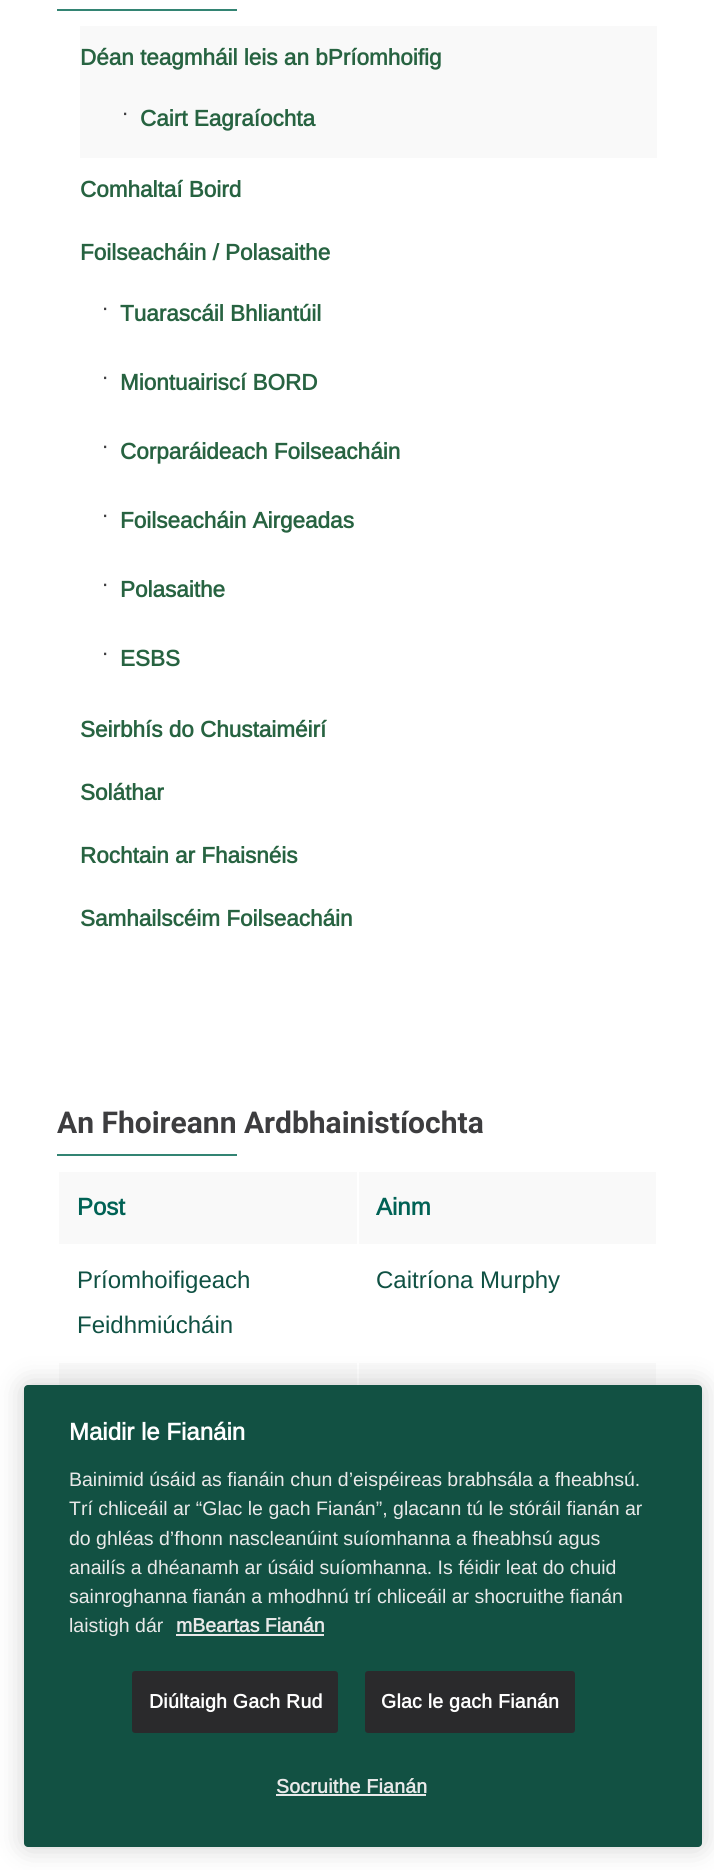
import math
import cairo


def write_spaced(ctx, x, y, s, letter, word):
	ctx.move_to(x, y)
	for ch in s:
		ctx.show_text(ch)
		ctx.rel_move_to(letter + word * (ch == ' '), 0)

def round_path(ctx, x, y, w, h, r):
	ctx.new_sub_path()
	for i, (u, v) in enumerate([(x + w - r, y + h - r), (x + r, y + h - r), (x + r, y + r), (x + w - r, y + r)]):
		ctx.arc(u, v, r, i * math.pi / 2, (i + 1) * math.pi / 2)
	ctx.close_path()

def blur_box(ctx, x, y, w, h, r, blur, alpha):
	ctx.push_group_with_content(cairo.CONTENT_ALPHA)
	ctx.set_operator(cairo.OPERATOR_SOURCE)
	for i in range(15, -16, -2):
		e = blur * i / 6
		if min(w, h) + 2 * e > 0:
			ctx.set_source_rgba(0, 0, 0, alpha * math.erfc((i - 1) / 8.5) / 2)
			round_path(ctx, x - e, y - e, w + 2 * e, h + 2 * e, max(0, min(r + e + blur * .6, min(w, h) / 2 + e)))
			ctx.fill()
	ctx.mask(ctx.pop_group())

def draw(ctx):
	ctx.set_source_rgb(1, 1, 1)
	ctx.paint()
	ctx.set_source_rgb(0.2, 0.518, 0.451)
	ctx.rectangle(57, 9, 180, 2)
	ctx.fill()
	ctx.set_source_rgb(0.973, 0.973, 0.973)
	ctx.rectangle(80, 26, 577, 132)
	ctx.fill()
	ctx.select_font_face('Arimo', cairo.FONT_SLANT_NORMAL, cairo.FONT_WEIGHT_BOLD)
	ctx.set_font_size(22.5)
	ctx.set_source_rgb(0.153, 0.388, 0.255)
	ctx.move_to(80, 65)
	ctx.show_text('Déan teagmháil leis an bPríomhoifig')
	ctx.select_font_face('Liberation Sans')
	ctx.set_source_rgb(0.239, 0.239, 0.247)
	ctx.move_to(122, 120)
	ctx.show_text('∙')
	ctx.select_font_face('Arimo', cairo.FONT_SLANT_NORMAL, cairo.FONT_WEIGHT_BOLD)
	ctx.set_source_rgb(0.153, 0.388, 0.255)
	for x, y, s in [
		(140, 126, 'Cairt Eagraíochta'),
		(80, 197, 'Comhaltaí Boird'),
		(80, 260, 'Foilseacháin / Polasaithe'),
	]:
		ctx.move_to(x, y)
		ctx.show_text(s)
	ctx.select_font_face('Liberation Sans')
	ctx.set_source_rgb(0.239, 0.239, 0.247)
	ctx.move_to(102, 315)
	ctx.show_text('∙')
	ctx.select_font_face('Arimo', cairo.FONT_SLANT_NORMAL, cairo.FONT_WEIGHT_BOLD)
	ctx.set_source_rgb(0.153, 0.388, 0.255)
	ctx.move_to(120, 321)
	ctx.show_text('Tuarascáil Bhliantúil')
	ctx.select_font_face('Liberation Sans')
	ctx.set_source_rgb(0.239, 0.239, 0.247)
	ctx.move_to(102, 384)
	ctx.show_text('∙')
	ctx.select_font_face('Arimo', cairo.FONT_SLANT_NORMAL, cairo.FONT_WEIGHT_BOLD)
	ctx.set_source_rgb(0.153, 0.388, 0.255)
	ctx.move_to(120, 390)
	ctx.show_text('Miontuairiscí BORD')
	ctx.select_font_face('Liberation Sans')
	ctx.set_source_rgb(0.239, 0.239, 0.247)
	ctx.move_to(102, 453)
	ctx.show_text('∙')
	ctx.select_font_face('Arimo', cairo.FONT_SLANT_NORMAL, cairo.FONT_WEIGHT_BOLD)
	ctx.set_source_rgb(0.153, 0.388, 0.255)
	ctx.move_to(120, 459)
	ctx.show_text('Corparáideach Foilseacháin')
	ctx.select_font_face('Liberation Sans')
	ctx.set_source_rgb(0.239, 0.239, 0.247)
	ctx.move_to(102, 522)
	ctx.show_text('∙')
	ctx.select_font_face('Arimo', cairo.FONT_SLANT_NORMAL, cairo.FONT_WEIGHT_BOLD)
	ctx.set_source_rgb(0.153, 0.388, 0.255)
	ctx.move_to(120, 528)
	ctx.show_text('Foilseacháin Airgeadas')
	ctx.select_font_face('Liberation Sans')
	ctx.set_source_rgb(0.239, 0.239, 0.247)
	ctx.move_to(102, 591)
	ctx.show_text('∙')
	ctx.select_font_face('Arimo', cairo.FONT_SLANT_NORMAL, cairo.FONT_WEIGHT_BOLD)
	ctx.set_source_rgb(0.153, 0.388, 0.255)
	ctx.move_to(120, 597)
	ctx.show_text('Polasaithe')
	ctx.select_font_face('Liberation Sans')
	ctx.set_source_rgb(0.239, 0.239, 0.247)
	ctx.move_to(102, 660)
	ctx.show_text('∙')
	ctx.select_font_face('Arimo', cairo.FONT_SLANT_NORMAL, cairo.FONT_WEIGHT_BOLD)
	ctx.set_source_rgb(0.153, 0.388, 0.255)
	for x, y, s in [
		(120, 666, 'ESBS'),
		(80, 737, 'Seirbhís do Chustaiméirí'),
		(80, 800, 'Soláthar'),
		(80, 863, 'Rochtain ar Fhaisnéis'),
		(80, 926, 'Samhailscéim Foilseacháin'),
	]:
		ctx.move_to(x, y)
		ctx.show_text(s)
	ctx.select_font_face('Roboto', cairo.FONT_SLANT_NORMAL, cairo.FONT_WEIGHT_BOLD)
	ctx.set_font_size(30)
	ctx.set_source_rgb(0.239, 0.239, 0.247)
	ctx.move_to(57, 1133)
	ctx.show_text('An Fhoireann Ardbhainistíochta')
	ctx.set_source_rgb(0.2, 0.518, 0.451)
	ctx.rectangle(57, 1154, 180, 2)
	ctx.fill()
	ctx.set_source_rgb(0.973, 0.973, 0.973)
	ctx.rectangle(59, 1172, 597, 213)
	ctx.fill()
	ctx.set_source_rgb(1, 1, 1)
	ctx.rectangle(59, 1244, 597, 117)
	ctx.rectangle(357, 1170, 2, 75)
	ctx.fill()
	ctx.select_font_face('Arimo', cairo.FONT_SLANT_NORMAL, cairo.FONT_WEIGHT_BOLD)
	ctx.set_font_size(24)
	ctx.set_source_rgb(0, 0.384, 0.333)
	ctx.move_to(77, 1215)
	ctx.show_text('Post')
	ctx.move_to(376, 1215)
	ctx.show_text('Ainm')
	ctx.select_font_face('Arimo')
	ctx.set_source_rgb(0.059, 0.318, 0.263)
	ctx.move_to(77, 1288)
	ctx.show_text('Príomhoifigeach')
	ctx.move_to(77, 1333)
	ctx.show_text('Feidhmiúcháin')
	ctx.set_source_rgb(1, 1, 1)
	ctx.rectangle(357, 1361, 2, 24)
	ctx.fill()
	ctx.rectangle(57, 1361, 600, 2)
	ctx.fill()
	ctx.set_source_rgb(0.059, 0.318, 0.263)
	ctx.move_to(376, 1288)
	ctx.show_text('Caitríona Murphy')
	ctx.set_source_rgb(0, 0, 0)
	blur_box(ctx, 24, 1385, 678, 462, 4, 13.5, 0.2)
	ctx.set_source_rgb(0.071, 0.318, 0.263)
	round_path(ctx, 24, 1385, 678, 462, 4)
	ctx.fill()
	ctx.select_font_face('Arimo', cairo.FONT_SLANT_NORMAL, cairo.FONT_WEIGHT_BOLD)
	ctx.set_source_rgb(1, 1, 1)
	ctx.move_to(69, 1440)
	ctx.show_text('Maidir le Fianáin')
	ctx.select_font_face('Arimo')
	ctx.set_font_size(19.5)
	ctx.set_source_rgb(0.914, 0.914, 0.914)
	for x, y, s in [
		(69, 1486, 'Bainimid úsáid as fianáin chun d’eispéireas brabhsála a fheabhsú.'),
		(69, 1515, 'Trí chliceáil ar “Glac le gach Fianán”, glacann tú le stóráil fianán ar'),
		(69, 1545, 'do ghléas d’fhonn nascleanúint suíomhanna a fheabhsú agus'),
		(69, 1574, 'anailís a dhéanamh ar úsáid suíomhanna. Is féidir leat do chuid'),
		(69, 1603, 'sainroghanna fianán a mhodhnú trí chliceáil ar shocruithe fianán'),
		(69, 1632, 'laistigh dár'),
	]:
		ctx.move_to(x, y)
		ctx.show_text(s)
	ctx.select_font_face('Arimo', cairo.FONT_SLANT_NORMAL, cairo.FONT_WEIGHT_BOLD)
	ctx.move_to(176, 1632)
	ctx.show_text('mBeartas Fianán')
	ctx.rectangle(176, 1634, 148, 2)
	ctx.fill()
	ctx.set_source_rgb(0.165, 0.165, 0.173)
	round_path(ctx, 133, 1672, 204, 60, 2)
	ctx.fill_preserve()
	ctx.stroke()
	ctx.set_source_rgb(1, 1, 1)
	write_spaced(ctx, 149, 1708, 'Diúltaigh Gach Rud', 0.25, 0)
	ctx.set_source_rgb(0.165, 0.165, 0.173)
	round_path(ctx, 366, 1672, 208, 60, 2)
	ctx.fill_preserve()
	ctx.stroke()
	ctx.set_source_rgb(1, 1, 1)
	write_spaced(ctx, 381, 1708, 'Glac le gach Fianán', 0.25, 0)
	ctx.set_source_rgb(0.914, 0.914, 0.914)
	write_spaced(ctx, 276, 1793, 'Socruithe Fianán', 0.25, 0)
	ctx.rectangle(276, 1794, 150, 2)
	ctx.fill()


surface = cairo.ImageSurface(cairo.FORMAT_RGB24, 714, 1870)
ctx = cairo.Context(surface)
options = cairo.FontOptions()
options.set_hint_metrics(cairo.HINT_METRICS_OFF)
options.set_hint_style(cairo.HINT_STYLE_NONE)
ctx.set_font_options(options)
ctx.set_miter_limit(4)
draw(ctx)
surface.write_to_png('image.png')
